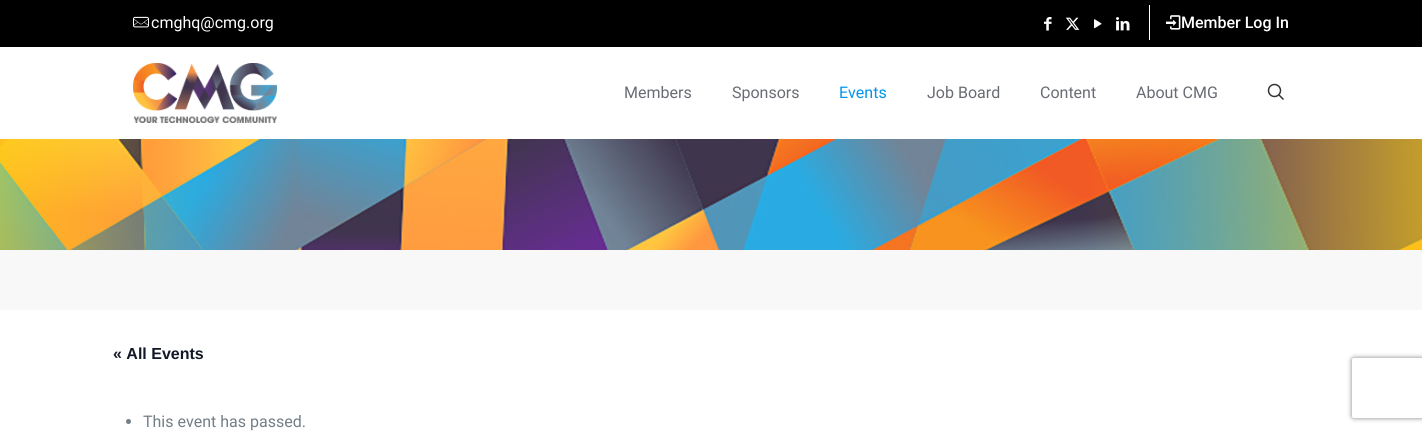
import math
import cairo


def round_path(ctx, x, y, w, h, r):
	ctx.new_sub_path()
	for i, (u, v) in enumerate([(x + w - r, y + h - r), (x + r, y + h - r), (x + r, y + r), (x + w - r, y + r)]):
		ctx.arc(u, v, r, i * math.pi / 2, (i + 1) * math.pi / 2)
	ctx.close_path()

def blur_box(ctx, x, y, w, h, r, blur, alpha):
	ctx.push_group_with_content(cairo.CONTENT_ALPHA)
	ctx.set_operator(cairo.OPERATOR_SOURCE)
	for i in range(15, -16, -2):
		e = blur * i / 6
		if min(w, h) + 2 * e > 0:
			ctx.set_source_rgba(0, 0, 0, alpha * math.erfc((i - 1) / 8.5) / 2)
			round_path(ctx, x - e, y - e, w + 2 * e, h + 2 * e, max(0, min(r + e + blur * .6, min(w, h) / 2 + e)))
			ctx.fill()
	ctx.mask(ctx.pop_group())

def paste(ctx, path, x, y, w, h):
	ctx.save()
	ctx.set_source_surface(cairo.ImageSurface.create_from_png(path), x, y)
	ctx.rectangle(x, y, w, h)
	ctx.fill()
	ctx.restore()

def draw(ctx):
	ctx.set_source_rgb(1, 1, 1)
	ctx.paint()
	paste(ctx, 'media/1.png', 0, 139, 1422, 111)
	ctx.set_source_rgb(0, 0, 0)
	ctx.rectangle(0, 0, 1422, 47)
	ctx.fill()
	paste(ctx, 'media/2.png', 133, 16, 16, 12)
	ctx.select_font_face('Roboto')
	ctx.set_font_size(16)
	ctx.set_source_rgb(1, 1, 1)
	ctx.move_to(151, 28)
	ctx.show_text('cmghq@cmg.org')
	paste(ctx, 'media/3.png', 1044, 17, 8, 14)
	paste(ctx, 'media/4.png', 1065, 17, 15, 13)
	paste(ctx, 'media/5.png', 1094, 19, 8, 10)
	paste(ctx, 'media/6.png', 1116, 17, 14, 14)
	ctx.rectangle(1149, 5, 1, 35)
	ctx.fill()
	paste(ctx, 'media/7.png', 1166, 15, 15, 15)
	ctx.select_font_face('Roboto Medium')
	ctx.move_to(1181, 28)
	ctx.show_text('Member Log In')
	paste(ctx, 'media/8.png', 133, 63, 144, 60)
	ctx.select_font_face('Roboto')
	ctx.set_source_rgb(0.416, 0.424, 0.455)
	ctx.move_to(624, 98)
	ctx.show_text('Members')
	ctx.move_to(732, 98)
	ctx.show_text('Sponsors')
	ctx.set_source_rgb(0, 0.584, 0.922)
	ctx.move_to(839, 98)
	ctx.show_text('Events')
	ctx.set_source_rgb(0.416, 0.424, 0.455)
	for x, y, s in [
		(927, 98, 'Job Board'),
		(1040, 98, 'Content'),
		(1136, 98, 'About CMG'),
	]:
		ctx.move_to(x, y)
		ctx.show_text(s)
	ctx.new_path()
	ctx.arc(1274.5, 90.5, 6, 0, 2 * math.pi)
	ctx.set_source_rgb(0.2, 0.2, 0.2)
	ctx.set_line_width(1.5)
	ctx.stroke()
	ctx.new_path()
	ctx.move_to(1278.5, 94.5)
	ctx.line_to(1283.5, 99.5)
	ctx.stroke()
	ctx.set_source_rgb(0.969, 0.969, 0.969)
	ctx.rectangle(0, 250, 1422, 60)
	ctx.fill()
	ctx.select_font_face('Liberation Sans', cairo.FONT_SLANT_NORMAL, cairo.FONT_WEIGHT_BOLD)
	ctx.set_source_rgb(0.078, 0.094, 0.153)
	ctx.move_to(113, 359)
	ctx.show_text('« All Events')
	ctx.set_source_rgb(0.451, 0.494, 0.525)
	ctx.new_path()
	ctx.arc(128.5, 421.5, 2.5, 0, 2 * math.pi)
	ctx.fill()
	ctx.select_font_face('Roboto')
	ctx.move_to(143, 427)
	ctx.show_text('This event has passed.')
	ctx.save()
	ctx.set_fill_rule(cairo.FILL_RULE_EVEN_ODD)
	ctx.new_path()
	ctx.move_to(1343, 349)
	ctx.line_to(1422, 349)
	ctx.line_to(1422, 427)
	ctx.line_to(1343, 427)
	ctx.close_path()
	ctx.move_to(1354, 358)
	ctx.line_to(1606, 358)
	ctx.curve_to(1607, 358, 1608, 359, 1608, 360)
	ctx.line_to(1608, 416)
	ctx.curve_to(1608, 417, 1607, 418, 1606, 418)
	ctx.line_to(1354, 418)
	ctx.curve_to(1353, 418, 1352, 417, 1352, 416)
	ctx.line_to(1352, 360)
	ctx.curve_to(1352, 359, 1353, 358, 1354, 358)
	ctx.close_path()
	ctx.clip()
	ctx.set_source_rgb(0.502, 0.502, 0.502)
	blur_box(ctx, 1352, 358, 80, 60, 2, 2.5, 1)
	ctx.restore()


surface = cairo.ImageSurface(cairo.FORMAT_RGB24, 1422, 432)
ctx = cairo.Context(surface)
options = cairo.FontOptions()
options.set_hint_metrics(cairo.HINT_METRICS_OFF)
options.set_hint_style(cairo.HINT_STYLE_NONE)
ctx.set_font_options(options)
ctx.set_miter_limit(4)
draw(ctx)
surface.write_to_png('image.png')
